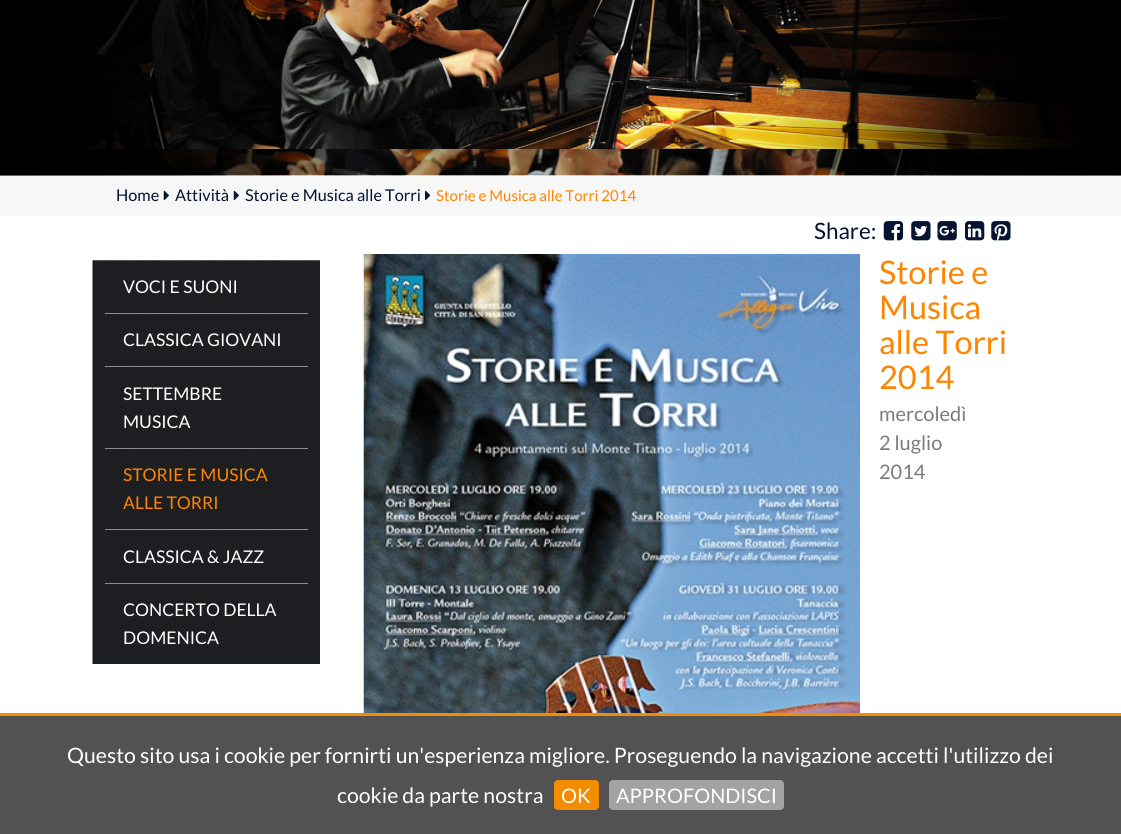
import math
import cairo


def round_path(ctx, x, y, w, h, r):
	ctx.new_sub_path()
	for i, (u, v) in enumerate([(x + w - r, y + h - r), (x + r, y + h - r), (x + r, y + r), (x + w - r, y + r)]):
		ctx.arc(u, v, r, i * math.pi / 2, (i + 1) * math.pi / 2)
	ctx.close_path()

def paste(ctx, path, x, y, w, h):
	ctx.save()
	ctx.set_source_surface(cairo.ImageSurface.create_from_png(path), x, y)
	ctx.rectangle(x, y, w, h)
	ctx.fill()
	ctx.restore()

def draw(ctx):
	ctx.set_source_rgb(1, 1, 1)
	ctx.paint()
	paste(ctx, 'media/2.png', 24, 0, 1073, 149)
	ctx.set_source_rgb(0.965, 0.965, 0.965)
	ctx.rectangle(0, 175, 1121, 41)
	ctx.fill()
	paste(ctx, 'media/3.png', 0, 149, 1121, 27)
	paste(ctx, 'media/1.png', 0, 0, 1121, 176)
	paste(ctx, 'media/4.png', 0, 149, 1121, 27)
	ctx.select_font_face('Lato')
	ctx.set_font_size(16.25)
	ctx.set_source_rgb(0.016, 0.078, 0.192)
	ctx.move_to(116, 201)
	ctx.show_text('Home')
	paste(ctx, 'media/5.png', 163, 190, 6, 10)
	ctx.move_to(175, 201)
	ctx.show_text('Attività')
	paste(ctx, 'media/5.png', 233, 190, 6, 10)
	ctx.move_to(245, 201)
	ctx.show_text('Storie e Musica alle Torri')
	paste(ctx, 'media/6.png', 425, 190, 6, 10)
	ctx.set_font_size(15)
	ctx.set_source_rgb(1, 0.518, 0)
	ctx.move_to(436, 201)
	ctx.show_text('Storie e Musica alle Torri 2014')
	ctx.set_font_size(22.5)
	ctx.set_source_rgb(0.016, 0.078, 0.192)
	ctx.move_to(814, 239)
	ctx.show_text('Share:')
	paste(ctx, 'media/7.png', 883, 221, 21, 20)
	paste(ctx, 'media/8.png', 911, 221, 20, 20)
	paste(ctx, 'media/9.png', 937, 221, 20, 20)
	paste(ctx, 'media/10.png', 965, 221, 20, 20)
	paste(ctx, 'media/11.png', 991, 221, 20, 20)
	paste(ctx, 'media/12.png', 92, 260, 228, 404)
	ctx.set_source_rgb(0.545, 0.557, 0.576)
	ctx.rectangle(105, 313, 203, 1)
	ctx.fill()
	ctx.set_font_size(17.5)
	ctx.set_source_rgb(1, 1, 1)
	ctx.move_to(123, 293)
	ctx.show_text('VOCI E SUONI')
	ctx.set_source_rgb(0.545, 0.557, 0.576)
	ctx.rectangle(105, 366, 203, 1)
	ctx.fill()
	ctx.set_source_rgb(1, 1, 1)
	ctx.move_to(123, 346)
	ctx.show_text('CLASSICA GIOVANI')
	ctx.set_source_rgb(0.545, 0.557, 0.576)
	ctx.rectangle(105, 448, 203, 1)
	ctx.fill()
	ctx.set_source_rgb(1, 1, 1)
	ctx.move_to(123, 400)
	ctx.show_text('SETTEMBRE')
	ctx.move_to(123, 428)
	ctx.show_text('MUSICA')
	ctx.set_source_rgb(0.545, 0.557, 0.576)
	ctx.rectangle(105, 529, 203, 1)
	ctx.fill()
	ctx.set_source_rgb(1, 0.518, 0)
	ctx.move_to(123, 481)
	ctx.show_text('STORIE E MUSICA')
	ctx.move_to(123, 509)
	ctx.show_text('ALLE TORRI')
	ctx.set_source_rgb(0.545, 0.557, 0.576)
	ctx.rectangle(105, 583, 203, 1)
	ctx.fill()
	ctx.set_source_rgb(1, 1, 1)
	for x, y, s in [
		(123, 563, 'CLASSICA & JAZZ'),
		(123, 616, 'CONCERTO DELLA'),
		(123, 644, 'DOMENICA'),
	]:
		ctx.move_to(x, y)
		ctx.show_text(s)
	paste(ctx, 'media/13.png', 363, 254, 497, 459)
	ctx.set_font_size(32.5)
	ctx.set_source_rgb(1, 0.518, 0)
	for x, y, s in [
		(879, 284, 'Storie e'),
		(879, 319, 'Musica'),
		(879, 354, 'alle Torri'),
		(879, 389, '2014'),
	]:
		ctx.move_to(x, y)
		ctx.show_text(s)
	ctx.set_font_size(20)
	ctx.set_source_rgb(0.482, 0.482, 0.482)
	for x, y, s in [
		(879, 421, 'mercoledì'),
		(879, 450, '2 luglio'),
		(879, 479, '2014'),
	]:
		ctx.move_to(x, y)
		ctx.show_text(s)
	ctx.set_source_rgb(0.322, 0.322, 0.322)
	ctx.rectangle(0, 716, 1121, 118)
	ctx.fill()
	ctx.set_source_rgb(0.949, 0.549, 0)
	ctx.rectangle(0, 713, 1121, 3)
	ctx.fill()
	ctx.set_font_size(21.25)
	ctx.set_source_rgb(1, 1, 1)
	ctx.move_to(67, 763)
	ctx.show_text('Questo sito usa i cookie per fornirti un\'esperienza migliore. Proseguendo la navigazione accetti l\'utilizzo dei')
	ctx.move_to(337, 803)
	ctx.show_text('cookie da parte nostra')
	ctx.set_source_rgb(0.949, 0.549, 0)
	round_path(ctx, 554, 780, 45, 30, 4)
	ctx.fill()
	ctx.set_font_size(20)
	ctx.set_source_rgb(1, 1, 1)
	ctx.move_to(561, 803)
	ctx.show_text('OK')
	ctx.set_source_rgb(0.639, 0.639, 0.639)
	round_path(ctx, 609, 780, 175, 30, 4)
	ctx.fill()
	ctx.set_source_rgb(1, 1, 1)
	ctx.move_to(616, 803)
	ctx.show_text('APPROFONDISCI')


surface = cairo.ImageSurface(cairo.FORMAT_RGB24, 1121, 834)
ctx = cairo.Context(surface)
options = cairo.FontOptions()
options.set_hint_metrics(cairo.HINT_METRICS_OFF)
options.set_hint_style(cairo.HINT_STYLE_NONE)
ctx.set_font_options(options)
ctx.set_miter_limit(4)
draw(ctx)
surface.write_to_png('image.png')
